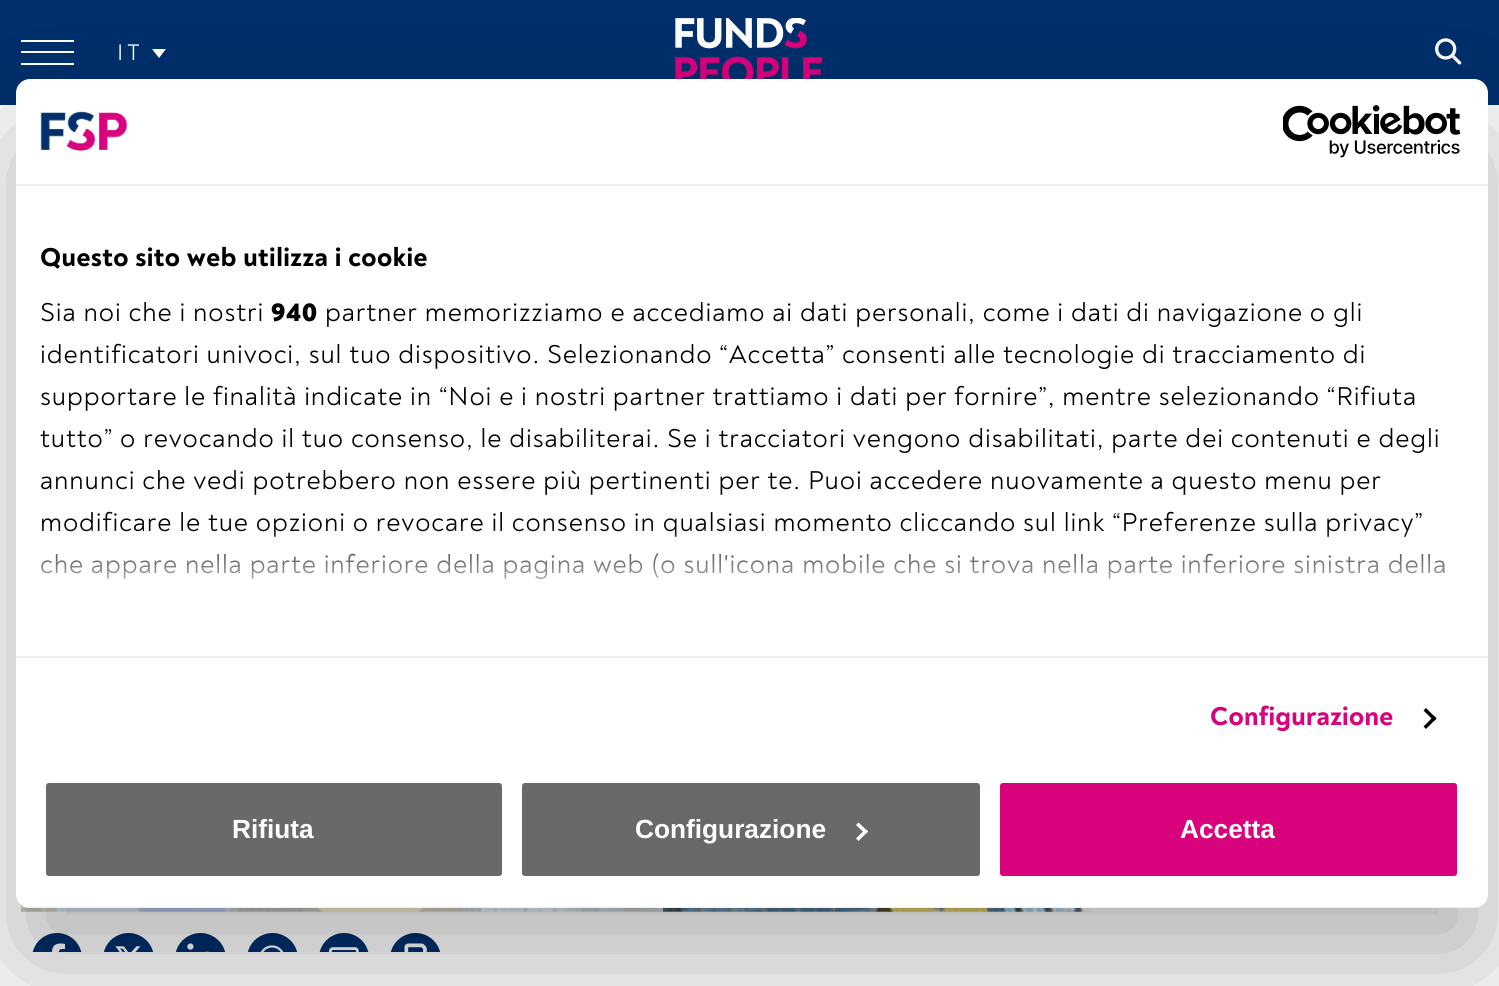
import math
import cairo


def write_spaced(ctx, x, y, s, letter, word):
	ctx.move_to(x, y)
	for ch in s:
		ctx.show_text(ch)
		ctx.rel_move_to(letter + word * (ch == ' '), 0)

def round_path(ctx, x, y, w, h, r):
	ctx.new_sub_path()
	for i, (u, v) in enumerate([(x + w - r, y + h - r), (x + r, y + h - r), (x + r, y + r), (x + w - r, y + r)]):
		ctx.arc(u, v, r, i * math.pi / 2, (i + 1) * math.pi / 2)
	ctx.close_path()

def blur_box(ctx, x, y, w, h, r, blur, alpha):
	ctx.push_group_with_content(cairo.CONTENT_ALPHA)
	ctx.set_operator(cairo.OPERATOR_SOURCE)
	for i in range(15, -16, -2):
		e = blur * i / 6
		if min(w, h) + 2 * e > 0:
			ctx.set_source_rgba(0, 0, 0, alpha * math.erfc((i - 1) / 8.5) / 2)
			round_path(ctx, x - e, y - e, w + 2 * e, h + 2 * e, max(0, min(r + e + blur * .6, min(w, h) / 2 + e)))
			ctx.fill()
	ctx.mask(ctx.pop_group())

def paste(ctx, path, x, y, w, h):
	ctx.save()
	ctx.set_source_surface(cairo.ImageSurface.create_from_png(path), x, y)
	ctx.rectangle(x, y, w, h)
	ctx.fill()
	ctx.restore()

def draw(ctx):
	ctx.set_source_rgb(1, 1, 1)
	ctx.paint()
	ctx.set_source_rgb(0, 0.184, 0.424)
	ctx.rectangle(0, 0, 1499, 105)
	ctx.fill()
	ctx.set_source_rgb(1, 1, 1)
	ctx.rectangle(21, 40, 53, 2)
	ctx.rectangle(21, 51, 53, 2)
	ctx.rectangle(21, 63, 53, 2)
	ctx.fill()
	ctx.select_font_face('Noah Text')
	ctx.set_font_size(23)
	write_spaced(ctx, 117, 60, 'IT', 4, 0)
	ctx.new_path()
	ctx.move_to(152, 49)
	ctx.line_to(166, 49)
	ctx.line_to(159, 58)
	ctx.close_path()
	ctx.fill()
	paste(ctx, 'media/1.png', 675, 18, 148, 61)
	paste(ctx, 'media/2.png', 1435, 38, 27, 27)
	paste(ctx, 'media/5.png', 21, 904, 1071, 8)
	ctx.set_source_rgba(1, 1, 1, 0.7)
	ctx.rectangle(21, 904, 642, 8)
	ctx.fill()
	ctx.set_source_rgb(0, 0.184, 0.424)
	round_path(ctx, 32, 933, 50, 51, 25)
	ctx.fill()
	paste(ctx, 'media/6.png', 51, 943, 15, 9)
	ctx.arc(128.5, 958.5, 25.5, 0, 2 * math.pi)
	ctx.fill()
	paste(ctx, 'media/7.png', 115, 946, 26, 6)
	ctx.arc(200.5, 958.5, 25.5, 0, 2 * math.pi)
	ctx.fill()
	paste(ctx, 'media/8.png', 187, 943, 22, 9)
	ctx.arc(272.5, 958.5, 25.5, 0, 2 * math.pi)
	ctx.fill()
	paste(ctx, 'media/9.png', 260, 945, 24, 7)
	round_path(ctx, 319, 933, 50, 51, 25)
	ctx.fill()
	paste(ctx, 'media/10.png', 329, 947, 30, 5)
	ctx.arc(415.5, 958.5, 25.5, 0, 2 * math.pi)
	ctx.fill()
	paste(ctx, 'media/11.png', 404, 943, 23, 9)
	ctx.set_source_rgb(1, 1, 1)
	ctx.rectangle(32, 952, 409, 32)
	ctx.fill()
	ctx.set_source_rgb(0, 0, 0)
	blur_box(ctx, 16, 135, 1472, 829, 14, 59.5, 0.3)
	ctx.set_source_rgb(1, 1, 1)
	round_path(ctx, 16, 79, 1472, 829, 14)
	ctx.fill()
	ctx.set_source_rgb(0.933, 0.933, 0.933)
	ctx.rectangle(16, 184, 1472, 2)
	ctx.fill()
	paste(ctx, 'media/3.png', 40, 111, 87, 40)
	paste(ctx, 'media/4.png', 1283, 105, 178, 53)
	ctx.rectangle(16, 656, 1472, 2)
	ctx.fill()
	ctx.select_font_face('Noah Text ExtraBold')
	ctx.set_font_size(26.25)
	ctx.set_source_rgb(0, 0, 0)
	write_spaced(ctx, 40, 266, 'Questo sito web utilizza i cookie', 0.45, 0)
	ctx.select_font_face('Noah Text')
	write_spaced(ctx, 40, 321, 'Sia noi che i nostri', 0.88, 0)
	ctx.select_font_face('Noah Text Black')
	write_spaced(ctx, 271, 321, '940', 0.88, 0)
	ctx.select_font_face('Noah Text')
	for x, y, s in [
		(325, 321, 'partner memorizziamo e accediamo ai dati personali, come i dati di navigazione o gli'),
		(40, 363, 'identificatori univoci, sul tuo dispositivo. Selezionando “Accetta” consenti alle tecnologie di tracciamento di'),
		(40, 405, 'supportare le finalità indicate in “Noi e i nostri partner trattiamo i dati per fornire”, mentre selezionando “Rifiuta'),
		(40, 447, 'tutto” o revocando il tuo consenso, le disabiliterai. Se i tracciatori vengono disabilitati, parte dei contenuti e degli'),
		(40, 489, 'annunci che vedi potrebbero non essere più pertinenti per te. Puoi accedere nuovamente a questo menu per'),
		(40, 531, 'modificare le tue opzioni o revocare il consenso in qualsiasi momento cliccando sul link “Preferenze sulla privacy”'),
		(40, 573, 'che appare nella parte inferiore della pagina web (o sull\'icona mobile che si trova nella parte inferiore sinistra della'),
	]:
		write_spaced(ctx, x, y, s, 0.88, 0)
	gradient = cairo.LinearGradient(739, 656, 739, 525)
	gradient.add_color_stop_rgba(0, 1, 1, 1, 1)
	gradient.add_color_stop_rgba(0.5, 1, 1, 1, 0.8)
	gradient.add_color_stop_rgba(1, 1, 1, 1, 0)
	ctx.set_source(gradient)
	ctx.rectangle(41, 527, 1403, 52)
	ctx.fill()
	ctx.select_font_face('Noah Text ExtraBold')
	ctx.set_source_rgb(0.851, 0.008, 0.49)
	write_spaced(ctx, 1210, 725, 'Configurazione', 0.25, 0)
	ctx.set_source_rgb(0, 0, 0)
	ctx.new_path()
	ctx.move_to(1426, 708)
	ctx.line_to(1436.5, 718.5)
	ctx.line_to(1434, 721)
	ctx.line_to(1423.5, 710.5)
	ctx.close_path()
	ctx.fill()
	ctx.new_path()
	ctx.move_to(1434, 716)
	ctx.line_to(1436.5, 718.5)
	ctx.line_to(1426, 729)
	ctx.line_to(1423.5, 726.5)
	ctx.close_path()
	ctx.fill()
	ctx.save()
	round_path(ctx, 16, 79, 1472, 829, 14)
	ctx.clip()
	ctx.set_source_rgb(0.933, 0.933, 0.933)
	ctx.rectangle(25, 907, 1454, 1)
	ctx.fill()
	ctx.restore()
	ctx.set_source_rgb(0.412, 0.412, 0.412)
	round_path(ctx, 44, 781, 460, 97, 5)
	ctx.fill_preserve()
	ctx.set_source_rgb(1, 1, 1)
	ctx.set_line_width(4)
	ctx.stroke()
	ctx.select_font_face('Liberation Sans', cairo.FONT_SLANT_NORMAL, cairo.FONT_WEIGHT_BOLD)
	ctx.move_to(232, 838)
	ctx.show_text('Rifiuta')
	ctx.set_source_rgb(0.412, 0.412, 0.412)
	round_path(ctx, 520, 781, 462, 97, 5)
	ctx.fill_preserve()
	ctx.set_source_rgb(1, 1, 1)
	ctx.stroke()
	ctx.move_to(635, 838)
	ctx.show_text('Configurazione')
	ctx.new_path()
	ctx.move_to(858.5, 822.5)
	ctx.line_to(868, 831.5)
	ctx.line_to(865.5, 834)
	ctx.line_to(856, 825)
	ctx.close_path()
	ctx.fill()
	ctx.new_path()
	ctx.move_to(865.5, 829)
	ctx.line_to(868, 831.5)
	ctx.line_to(858.5, 841)
	ctx.line_to(856, 838.5)
	ctx.close_path()
	ctx.fill()
	ctx.set_source_rgb(0.851, 0.008, 0.49)
	round_path(ctx, 998, 781, 461, 97, 5)
	ctx.fill_preserve()
	ctx.set_source_rgb(1, 1, 1)
	ctx.stroke()
	ctx.move_to(1180, 838)
	ctx.show_text('Accetta')


surface = cairo.ImageSurface(cairo.FORMAT_RGB24, 1499, 986)
ctx = cairo.Context(surface)
options = cairo.FontOptions()
options.set_hint_metrics(cairo.HINT_METRICS_OFF)
options.set_hint_style(cairo.HINT_STYLE_NONE)
ctx.set_font_options(options)
ctx.set_miter_limit(4)
draw(ctx)
surface.write_to_png('image.png')
